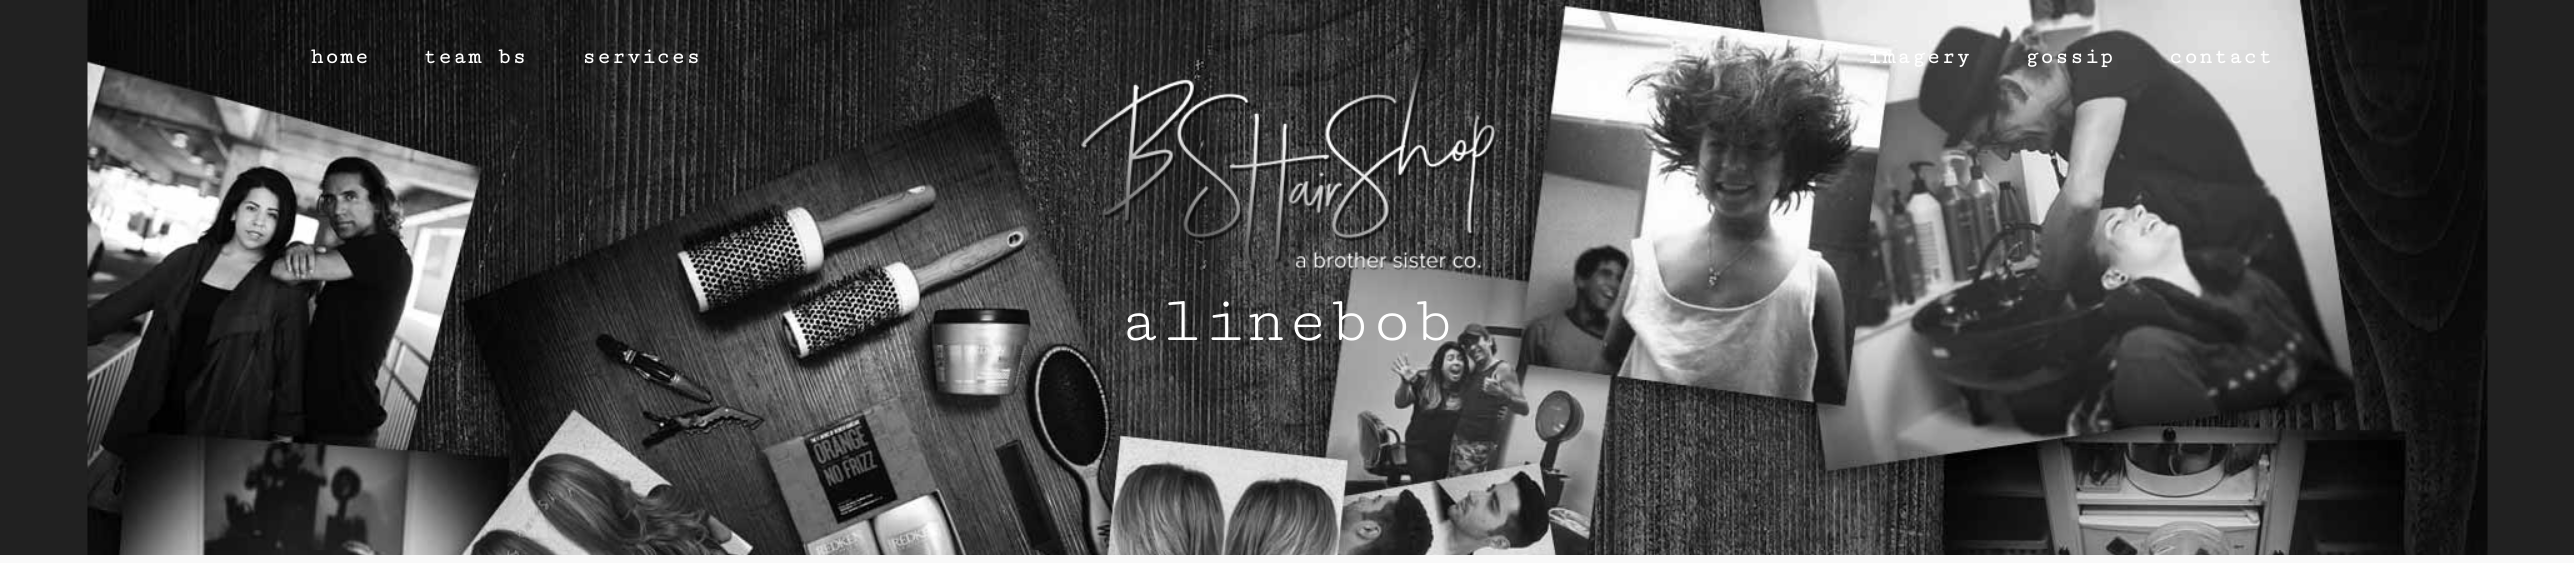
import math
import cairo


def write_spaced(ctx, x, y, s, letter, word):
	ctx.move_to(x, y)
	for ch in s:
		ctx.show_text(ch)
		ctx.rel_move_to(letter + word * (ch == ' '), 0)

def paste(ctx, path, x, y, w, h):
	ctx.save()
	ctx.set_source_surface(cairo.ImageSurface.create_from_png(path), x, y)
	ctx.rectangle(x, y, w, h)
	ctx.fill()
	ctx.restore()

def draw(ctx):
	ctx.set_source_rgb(0.973, 0.973, 0.973)
	ctx.paint()
	ctx.set_source_rgb(0.129, 0.129, 0.129)
	ctx.rectangle(0, 0, 2574, 555)
	ctx.fill()
	paste(ctx, 'media/1.png', 87, 0, 2401, 555)
	paste(ctx, 'media/2.png', 1081, 48, 417, 223)
	ctx.select_font_face('Cutive Mono', cairo.FONT_SLANT_NORMAL, cairo.FONT_WEIGHT_BOLD)
	ctx.set_font_size(22.5)
	ctx.set_source_rgb(1, 1, 1)
	for x, y, s in [
		(310, 63, 'home'),
		(423, 63, 'team bs'),
		(582, 63, 'services'),
		(1867, 63, 'imagery'),
		(2025, 63, 'gossip'),
		(2169, 63, 'contact'),
	]:
		write_spaced(ctx, x, y, s, 1.25, 0)
	ctx.select_font_face('Cutive Mono')
	ctx.set_font_size(67.5)
	write_spaced(ctx, 1119, 340, 'alinebob', 1.25, 0)


surface = cairo.ImageSurface(cairo.FORMAT_RGB24, 2574, 563)
ctx = cairo.Context(surface)
options = cairo.FontOptions()
options.set_hint_metrics(cairo.HINT_METRICS_OFF)
options.set_hint_style(cairo.HINT_STYLE_NONE)
ctx.set_font_options(options)
ctx.set_miter_limit(4)
draw(ctx)
surface.write_to_png('image.png')
